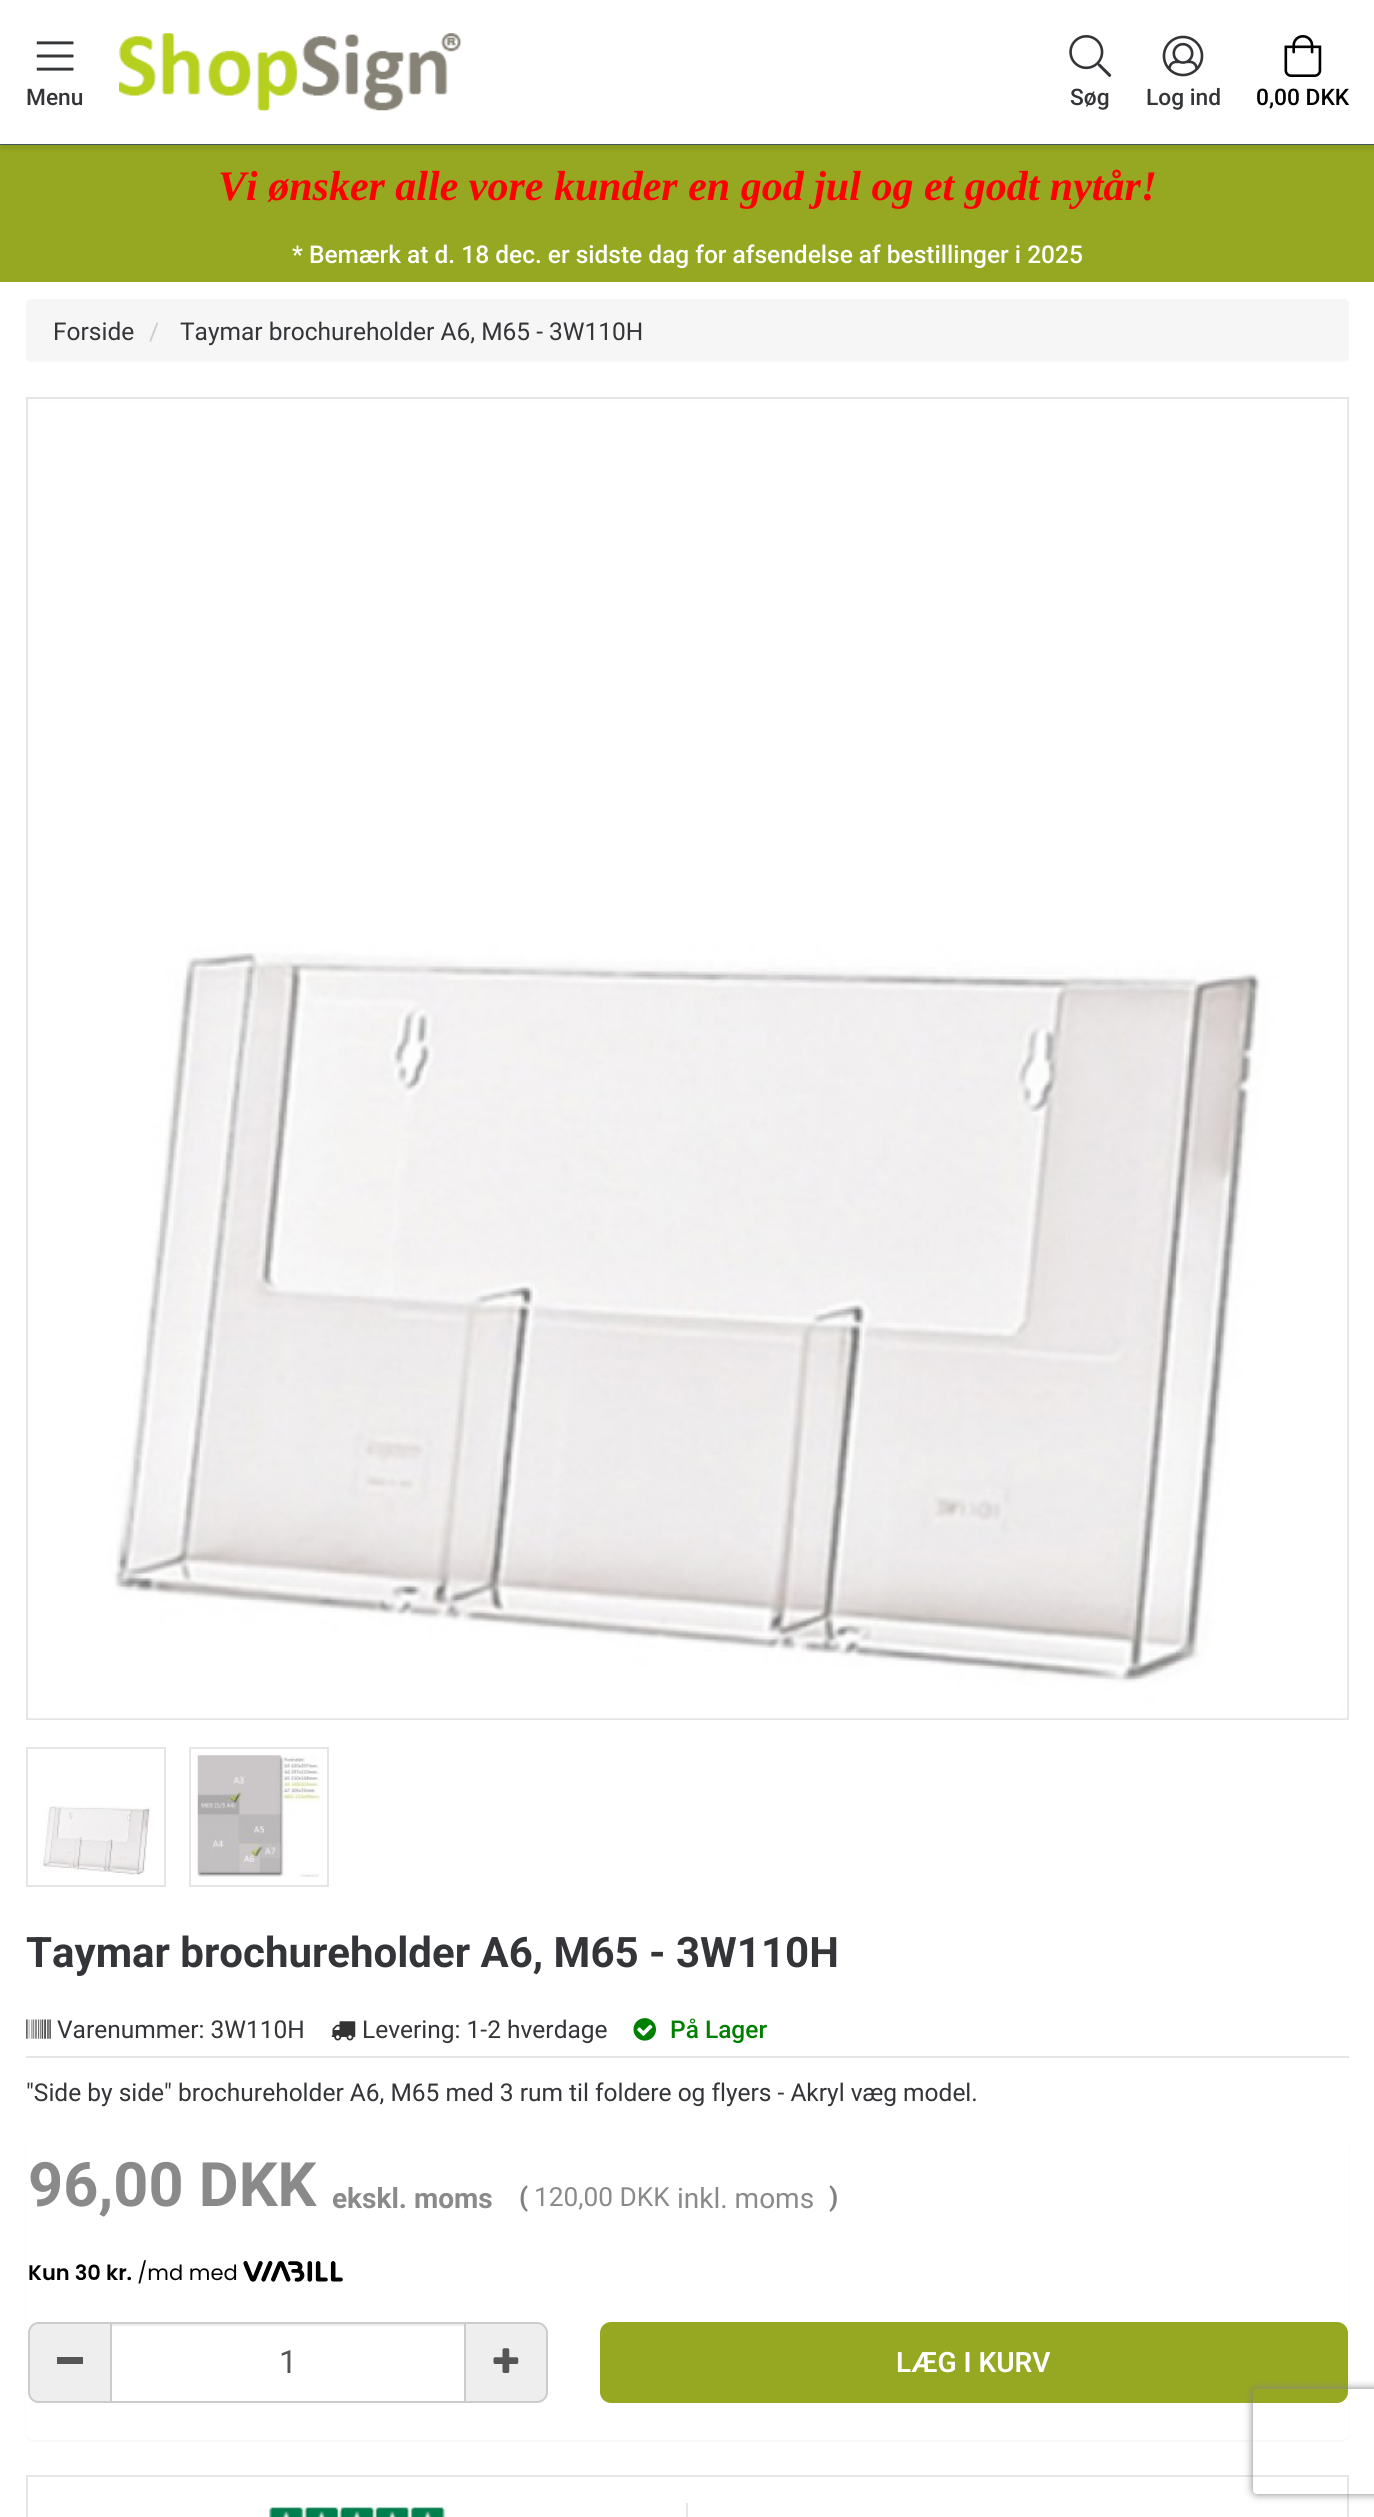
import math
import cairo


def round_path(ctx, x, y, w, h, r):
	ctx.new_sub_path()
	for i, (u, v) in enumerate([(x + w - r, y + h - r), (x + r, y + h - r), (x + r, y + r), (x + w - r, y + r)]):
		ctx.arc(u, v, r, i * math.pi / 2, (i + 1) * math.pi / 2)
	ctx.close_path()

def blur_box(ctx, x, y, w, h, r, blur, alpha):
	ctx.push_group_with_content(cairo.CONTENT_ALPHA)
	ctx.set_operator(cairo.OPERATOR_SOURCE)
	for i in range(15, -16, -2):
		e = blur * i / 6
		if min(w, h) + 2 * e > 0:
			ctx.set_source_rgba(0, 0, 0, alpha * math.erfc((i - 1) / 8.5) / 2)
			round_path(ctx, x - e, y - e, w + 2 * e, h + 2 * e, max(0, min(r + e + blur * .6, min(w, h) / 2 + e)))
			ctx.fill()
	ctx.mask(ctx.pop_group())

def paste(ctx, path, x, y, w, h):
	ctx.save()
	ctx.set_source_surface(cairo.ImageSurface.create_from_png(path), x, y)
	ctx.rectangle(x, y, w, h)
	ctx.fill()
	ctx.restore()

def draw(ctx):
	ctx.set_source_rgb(1, 1, 1)
	ctx.paint()
	ctx.set_source_rgb(0.29, 0.376, 0.431)
	ctx.rectangle(0, 144, 1374, 1)
	ctx.fill()
	ctx.set_source_rgb(0.588, 0.659, 0.129)
	ctx.rectangle(0, 145, 1374, 137)
	ctx.fill()
	ctx.set_source_rgb(0, 0, 0)
	blur_box(ctx, 0, 5, 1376, 144, 0, 2.5, 0.1)
	ctx.set_source_rgb(1, 1, 1)
	ctx.rectangle(0, 2, 1374, 142)
	ctx.fill()
	paste(ctx, 'media/1.png', 36, 41, 38, 30)
	ctx.select_font_face('Roboto Medium')
	ctx.set_font_size(22.75)
	ctx.set_source_rgb(0.204, 0.208, 0.22)
	ctx.move_to(26, 105)
	ctx.show_text('Menu')
	paste(ctx, 'media/2.png', 119, 33, 343, 78)
	paste(ctx, 'media/3.png', 1069, 35, 43, 42)
	ctx.move_to(1070, 105)
	ctx.show_text('Søg')
	paste(ctx, 'media/4.png', 1162, 35, 42, 42)
	ctx.move_to(1146, 105)
	ctx.show_text('Log ind')
	paste(ctx, 'media/5.png', 1284, 35, 38, 42)
	ctx.set_source_rgb(0, 0, 0)
	ctx.move_to(1256, 105)
	ctx.show_text('0,00 DKK')
	ctx.select_font_face('Liberation Serif', cairo.FONT_SLANT_ITALIC, cairo.FONT_WEIGHT_BOLD)
	ctx.set_font_size(42)
	ctx.set_source_rgb(1, 0, 0)
	ctx.move_to(218, 200)
	ctx.show_text('Vi ønsker alle vore kunder en god jul og et godt nytår!')
	ctx.select_font_face('Roboto Medium')
	ctx.set_font_size(24.5)
	ctx.set_source_rgb(1, 1, 1)
	ctx.move_to(292, 263)
	ctx.show_text('* Bemærk at d. 18 dec. er sidste dag for afsendelse af bestillinger i 2025')
	ctx.set_source_rgb(0.961, 0.961, 0.961)
	round_path(ctx, 26, 299, 1323, 63, 5)
	ctx.fill()
	ctx.select_font_face('Roboto')
	ctx.set_source_rgb(0.204, 0.208, 0.22)
	ctx.move_to(53, 340)
	ctx.show_text('Forside')
	ctx.set_source_rgb(0.8, 0.8, 0.8)
	ctx.move_to(149, 340)
	ctx.show_text('/')
	ctx.set_source_rgb(0.204, 0.208, 0.22)
	ctx.move_to(180, 340)
	ctx.show_text('Taymar brochureholder A6, M65 - 3W110H')
	ctx.rectangle(27, 398, 1321, 1321)
	ctx.set_source_rgb(0.898, 0.898, 0.898)
	ctx.stroke()
	paste(ctx, 'media/6.png', 28, 399, 1320, 1320)
	ctx.rectangle(27, 1748, 138, 138)
	ctx.stroke()
	paste(ctx, 'media/7.png', 40, 1806, 112, 69)
	ctx.rectangle(190, 1748, 138, 138)
	ctx.stroke()
	paste(ctx, 'media/8.png', 197, 1755, 124, 122)
	ctx.select_font_face('Roboto', cairo.FONT_SLANT_NORMAL, cairo.FONT_WEIGHT_BOLD)
	ctx.set_font_size(42)
	ctx.set_source_rgb(0.204, 0.208, 0.22)
	ctx.move_to(26, 1967)
	ctx.show_text('Taymar brochureholder A6, M65 - 3W110H')
	ctx.set_source_rgb(0.898, 0.898, 0.898)
	ctx.rectangle(26, 2056, 1323, 2)
	ctx.fill()
	paste(ctx, 'media/9.png', 26, 2019, 25, 20)
	ctx.select_font_face('Roboto')
	ctx.set_font_size(24.5)
	ctx.set_source_rgb(0.204, 0.208, 0.22)
	ctx.move_to(57, 2038)
	ctx.show_text('Varenummer: 3W110H')
	paste(ctx, 'media/10.png', 331, 2021, 25, 20)
	ctx.move_to(362, 2038)
	ctx.show_text('Levering: 1-2 hverdage')
	paste(ctx, 'media/11.png', 633, 2018, 23, 23)
	ctx.select_font_face('Roboto Medium')
	ctx.set_source_rgb(0, 0.502, 0)
	ctx.move_to(670, 2038)
	ctx.show_text('På Lager')
	ctx.select_font_face('Roboto')
	ctx.set_source_rgb(0.204, 0.208, 0.22)
	ctx.move_to(26, 2101)
	ctx.show_text('"Side by side" brochureholder A6, M65 med 3 rum til foldere og flyers - Akryl væg model.')
	ctx.set_source_rgb(0, 0, 0)
	blur_box(ctx, 26, 2139, 1323, 302, 7, 1, 0.05)
	ctx.set_source_rgb(1, 1, 1)
	round_path(ctx, 26, 2137, 1323, 303, 7)
	ctx.fill()
	ctx.select_font_face('Roboto', cairo.FONT_SLANT_NORMAL, cairo.FONT_WEIGHT_BOLD)
	ctx.set_font_size(61.25)
	ctx.set_source_rgb(0.541, 0.541, 0.541)
	ctx.move_to(28, 2206)
	ctx.show_text('96,00 DKK')
	ctx.set_font_size(28)
	ctx.move_to(332, 2208)
	ctx.show_text('ekskl. moms')
	ctx.set_font_size(26.25)
	ctx.set_source_rgb(0.502, 0.502, 0.502)
	ctx.move_to(519, 2206)
	ctx.show_text('(')
	ctx.select_font_face('Roboto')
	ctx.set_source_rgb(0.541, 0.541, 0.541)
	ctx.move_to(534, 2206)
	ctx.show_text('120,00 DKK')
	ctx.set_font_size(28)
	ctx.move_to(677, 2208)
	ctx.show_text('inkl. moms')
	ctx.select_font_face('Roboto', cairo.FONT_SLANT_NORMAL, cairo.FONT_WEIGHT_BOLD)
	ctx.set_font_size(26.25)
	ctx.set_source_rgb(0.502, 0.502, 0.502)
	ctx.move_to(829, 2206)
	ctx.show_text(')')
	paste(ctx, 'media/12.png', 29, 2260, 314, 24)
	ctx.set_source_rgb(0.933, 0.933, 0.933)
	ctx.new_path()
	ctx.move_to(39, 2322)
	ctx.line_to(110, 2322)
	ctx.line_to(110, 2403)
	ctx.line_to(39, 2403)
	ctx.curve_to(33, 2403, 28, 2398, 28, 2392)
	ctx.line_to(28, 2333)
	ctx.curve_to(28, 2327, 33, 2322, 39, 2322)
	ctx.close_path()
	ctx.fill()
	ctx.set_source_rgb(0.8, 0.8, 0.8)
	ctx.set_fill_rule(cairo.FILL_RULE_EVEN_ODD)
	ctx.new_path()
	ctx.move_to(38, 2322)
	ctx.line_to(110, 2322)
	ctx.line_to(110, 2403)
	ctx.line_to(38, 2403)
	ctx.curve_to(33, 2403, 28, 2398, 28, 2392)
	ctx.line_to(28, 2333)
	ctx.curve_to(28, 2327, 33, 2322, 38, 2322)
	ctx.close_path()
	ctx.move_to(38, 2324)
	ctx.line_to(110, 2324)
	ctx.line_to(110, 2401)
	ctx.line_to(38, 2401)
	ctx.curve_to(34, 2401, 30, 2397, 30, 2392)
	ctx.line_to(30, 2333)
	ctx.curve_to(30, 2328, 34, 2324, 38, 2324)
	ctx.close_path()
	ctx.fill()
	ctx.set_source_rgb(0.333, 0.333, 0.333)
	ctx.rectangle(57, 2357, 26, 7)
	ctx.fill()
	ctx.set_source_rgb(0.925, 0.925, 0.925)
	ctx.rectangle(112, 2324, 352, 2)
	ctx.fill()
	ctx.rectangle(111, 2323, 354, 79)
	ctx.set_source_rgb(0.8, 0.8, 0.8)
	ctx.stroke()
	ctx.select_font_face('Roboto')
	ctx.set_font_size(32)
	ctx.set_source_rgb(0.333, 0.333, 0.333)
	ctx.move_to(279, 2373)
	ctx.show_text('1')
	ctx.set_source_rgb(0.933, 0.933, 0.933)
	ctx.new_path()
	ctx.move_to(466, 2322)
	ctx.line_to(537, 2322)
	ctx.curve_to(543, 2322, 548, 2327, 548, 2333)
	ctx.line_to(548, 2392)
	ctx.curve_to(548, 2398, 543, 2403, 537, 2403)
	ctx.line_to(466, 2403)
	ctx.close_path()
	ctx.fill()
	ctx.set_source_rgb(0.8, 0.8, 0.8)
	ctx.new_path()
	ctx.move_to(466, 2322)
	ctx.line_to(537, 2322)
	ctx.curve_to(543, 2322, 548, 2327, 548, 2333)
	ctx.line_to(548, 2392)
	ctx.curve_to(548, 2398, 543, 2403, 537, 2403)
	ctx.line_to(466, 2403)
	ctx.close_path()
	ctx.move_to(466, 2324)
	ctx.line_to(537, 2324)
	ctx.curve_to(542, 2324, 546, 2328, 546, 2333)
	ctx.line_to(546, 2392)
	ctx.curve_to(546, 2397, 542, 2401, 537, 2401)
	ctx.line_to(466, 2401)
	ctx.close_path()
	ctx.fill()
	paste(ctx, 'media/13.png', 493, 2348, 26, 25)
	ctx.set_source_rgb(0.588, 0.659, 0.129)
	round_path(ctx, 601, 2323, 746, 79, 10)
	ctx.fill_preserve()
	ctx.stroke()
	ctx.select_font_face('Roboto SemiBold')
	ctx.set_font_size(28)
	ctx.set_source_rgb(1, 1, 1)
	ctx.move_to(896, 2372)
	ctx.show_text('LÆG I KURV')
	ctx.rectangle(27, 2476, 1321, 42)
	ctx.set_source_rgb(0.898, 0.898, 0.898)
	ctx.stroke()
	ctx.rectangle(686, 2503, 2, 14)
	ctx.fill()
	paste(ctx, 'media/14.png', 269, 2506, 176, 11)
	ctx.save()
	ctx.new_path()
	ctx.move_to(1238, 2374)
	ctx.line_to(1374, 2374)
	ctx.line_to(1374, 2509)
	ctx.line_to(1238, 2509)
	ctx.close_path()
	ctx.move_to(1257, 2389)
	ctx.line_to(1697, 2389)
	ctx.curve_to(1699, 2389, 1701, 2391, 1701, 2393)
	ctx.line_to(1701, 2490)
	ctx.curve_to(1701, 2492, 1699, 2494, 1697, 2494)
	ctx.line_to(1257, 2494)
	ctx.curve_to(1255, 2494, 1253, 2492, 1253, 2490)
	ctx.line_to(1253, 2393)
	ctx.curve_to(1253, 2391, 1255, 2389, 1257, 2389)
	ctx.close_path()
	ctx.clip()
	ctx.set_source_rgb(0.502, 0.502, 0.502)
	blur_box(ctx, 1253, 2389, 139, 105, 4, 4.5, 1)
	ctx.restore()


surface = cairo.ImageSurface(cairo.FORMAT_RGB24, 1374, 2517)
ctx = cairo.Context(surface)
options = cairo.FontOptions()
options.set_hint_metrics(cairo.HINT_METRICS_OFF)
options.set_hint_style(cairo.HINT_STYLE_NONE)
ctx.set_font_options(options)
ctx.set_miter_limit(4)
draw(ctx)
surface.write_to_png('image.png')
